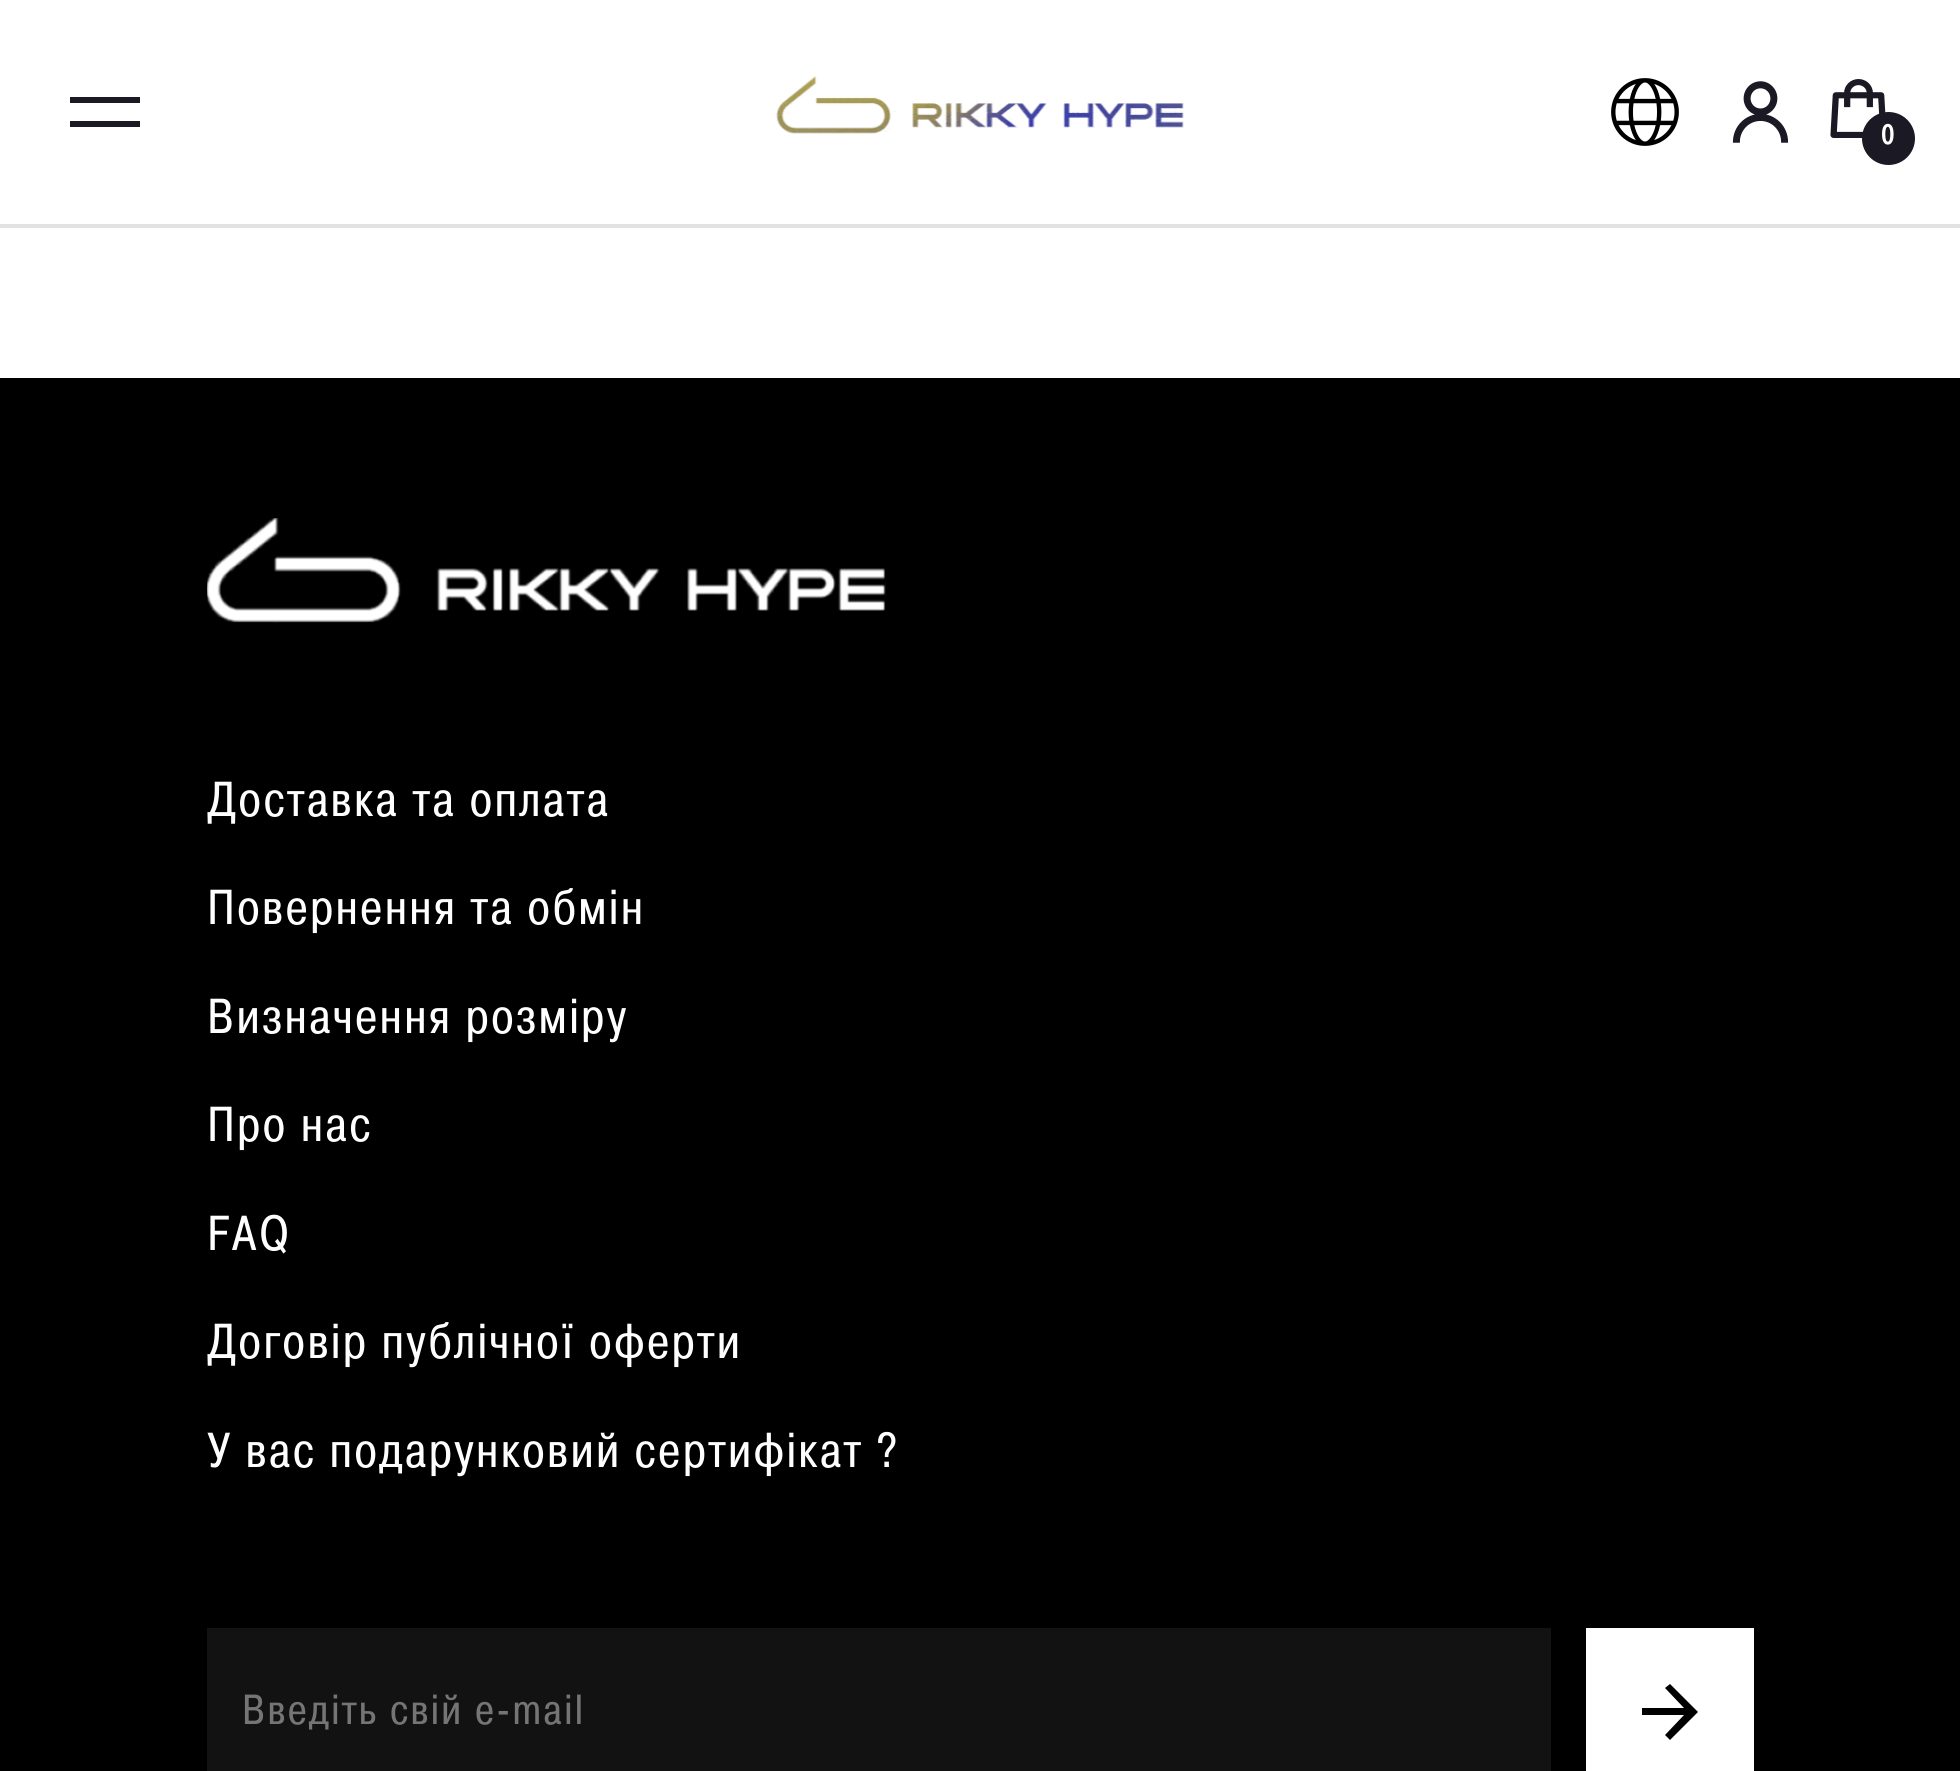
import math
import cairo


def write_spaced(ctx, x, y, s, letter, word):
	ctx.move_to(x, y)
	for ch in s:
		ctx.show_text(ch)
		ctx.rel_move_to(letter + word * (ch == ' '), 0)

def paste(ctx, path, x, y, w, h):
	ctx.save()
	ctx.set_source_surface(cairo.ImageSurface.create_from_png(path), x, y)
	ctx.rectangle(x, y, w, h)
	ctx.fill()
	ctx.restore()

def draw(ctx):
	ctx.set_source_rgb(1, 1, 1)
	ctx.paint()
	ctx.set_source_rgb(0.886, 0.886, 0.894)
	ctx.rectangle(0, 224, 1960, 4)
	ctx.fill()
	ctx.set_source_rgb(0.102, 0.098, 0.141)
	ctx.set_fill_rule(cairo.FILL_RULE_EVEN_ODD)
	ctx.new_path()
	ctx.move_to(140, 97)
	ctx.line_to(70, 97)
	ctx.line_to(70, 103)
	ctx.line_to(140, 103)
	ctx.close_path()
	ctx.move_to(140, 121)
	ctx.line_to(70, 121)
	ctx.line_to(70, 127)
	ctx.line_to(140, 127)
	ctx.close_path()
	ctx.fill()
	paste(ctx, 'media/1.png', 776, 76, 409, 58)
	paste(ctx, 'media/2.png', 1611, 78, 68, 68)
	paste(ctx, 'media/3.png', 1732, 81, 57, 62)
	paste(ctx, 'media/4.png', 1830, 79, 56, 59)
	ctx.arc(1888.5, 138.5, 26.5, 0, 2 * math.pi)
	ctx.fill()
	ctx.select_font_face('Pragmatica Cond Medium')
	ctx.set_font_size(28)
	ctx.set_source_rgb(1, 1, 1)
	write_spaced(ctx, 1881, 144, '0', 1, 0)
	ctx.set_source_rgb(0, 0, 0)
	ctx.rectangle(0, 378, 1960, 1393)
	ctx.fill()
	paste(ctx, 'media/5.png', 207, 518, 679, 105)
	ctx.select_font_face('Pragmatica Cond')
	ctx.set_font_size(49)
	ctx.set_source_rgb(1, 1, 1)
	for x, y, s in [
		(207, 816, 'Доставка та оплата'),
		(207, 924, 'Повернення та обмін'),
		(207, 1033, 'Визначення розміру'),
		(207, 1141, 'Про нас'),
		(207, 1250, 'FAQ'),
		(207, 1358, 'Договір публічної оферти'),
		(207, 1467, 'У вас подарунковий сертифікат ?'),
	]:
		write_spaced(ctx, x, y, s, 1.75, 0)
	ctx.set_source_rgb(0.071, 0.071, 0.075)
	ctx.rectangle(207, 1628, 1344, 143)
	ctx.fill()
	ctx.set_font_size(42)
	ctx.set_source_rgb(0.459, 0.459, 0.459)
	write_spaced(ctx, 242, 1724, 'Введіть свій e-mail', 1.75, 0)
	ctx.set_source_rgb(1, 1, 1)
	ctx.rectangle(1586, 1628, 168, 143)
	ctx.fill()
	ctx.set_source_rgb(0, 0, 0)
	ctx.set_fill_rule(cairo.FILL_RULE_WINDING)
	ctx.new_path()
	ctx.move_to(1670, 1684)
	ctx.line_to(1665, 1688)
	ctx.line_to(1684, 1708)
	ctx.line_to(1642, 1708)
	ctx.line_to(1642, 1715)
	ctx.line_to(1684, 1715)
	ctx.line_to(1665, 1735)
	ctx.line_to(1670, 1740)
	ctx.line_to(1698, 1712)
	ctx.close_path()
	ctx.fill()


surface = cairo.ImageSurface(cairo.FORMAT_RGB24, 1960, 1771)
ctx = cairo.Context(surface)
options = cairo.FontOptions()
options.set_hint_metrics(cairo.HINT_METRICS_OFF)
options.set_hint_style(cairo.HINT_STYLE_NONE)
ctx.set_font_options(options)
ctx.set_miter_limit(4)
draw(ctx)
surface.write_to_png('image.png')
